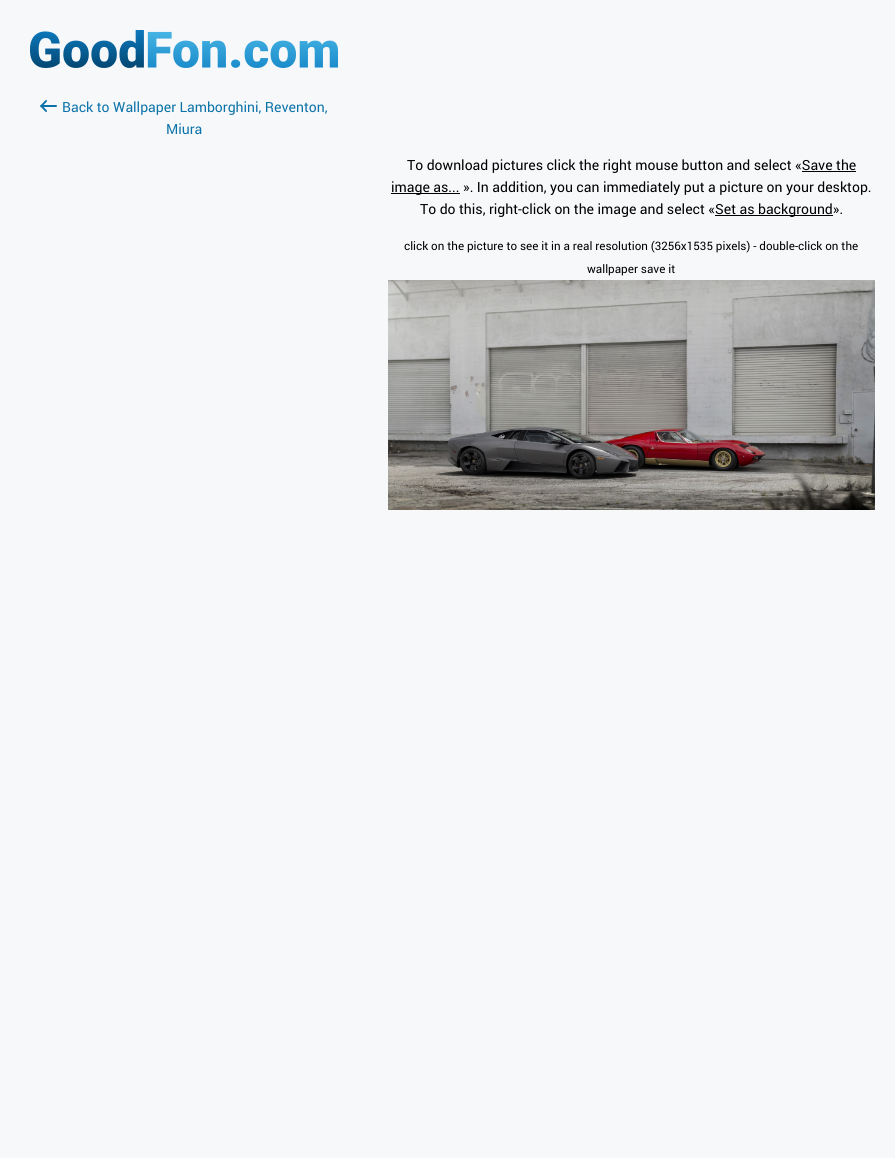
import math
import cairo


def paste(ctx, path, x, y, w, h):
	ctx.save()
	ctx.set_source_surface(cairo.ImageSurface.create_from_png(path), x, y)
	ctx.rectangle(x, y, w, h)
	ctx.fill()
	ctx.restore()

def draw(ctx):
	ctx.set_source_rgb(0.961, 0.969, 0.98)
	ctx.paint()
	paste(ctx, 'media/1.png', 30, 30, 308, 38)
	paste(ctx, 'media/2.png', 40, 100, 17, 12)
	ctx.select_font_face('Roboto')
	ctx.set_font_size(14)
	ctx.set_source_rgb(0.047, 0.451, 0.663)
	ctx.move_to(62, 112)
	ctx.show_text('Back to Wallpaper Lamborghini, Reventon,')
	ctx.move_to(166, 134)
	ctx.show_text('Miura')
	ctx.set_source_rgb(0, 0, 0)
	ctx.move_to(407, 170)
	ctx.show_text('To download pictures click the right mouse button and select «Save the')
	ctx.rectangle(391, 193, 69, 1)
	ctx.fill()
	ctx.move_to(391, 192)
	ctx.show_text('image as... ». In addition, you can immediately put a picture on your desktop.')
	ctx.rectangle(802, 171, 54, 1)
	ctx.fill()
	ctx.move_to(420, 214)
	ctx.show_text('To do this, right-click on the image and select «')
	ctx.rectangle(715, 215, 118, 1)
	ctx.fill()
	ctx.move_to(715, 214)
	ctx.show_text('Set as background».')
	ctx.set_font_size(11.65)
	ctx.move_to(404, 250)
	ctx.show_text('click on the picture to see it in a real resolution (3256x1535 pixels) - double-click on the')
	ctx.move_to(587, 273)
	ctx.show_text('wallpaper save it')
	paste(ctx, 'media/3.png', 388, 280, 487, 230)


surface = cairo.ImageSurface(cairo.FORMAT_RGB24, 895, 1158)
ctx = cairo.Context(surface)
options = cairo.FontOptions()
options.set_hint_metrics(cairo.HINT_METRICS_OFF)
options.set_hint_style(cairo.HINT_STYLE_NONE)
ctx.set_font_options(options)
ctx.set_miter_limit(4)
draw(ctx)
surface.write_to_png('image.png')
